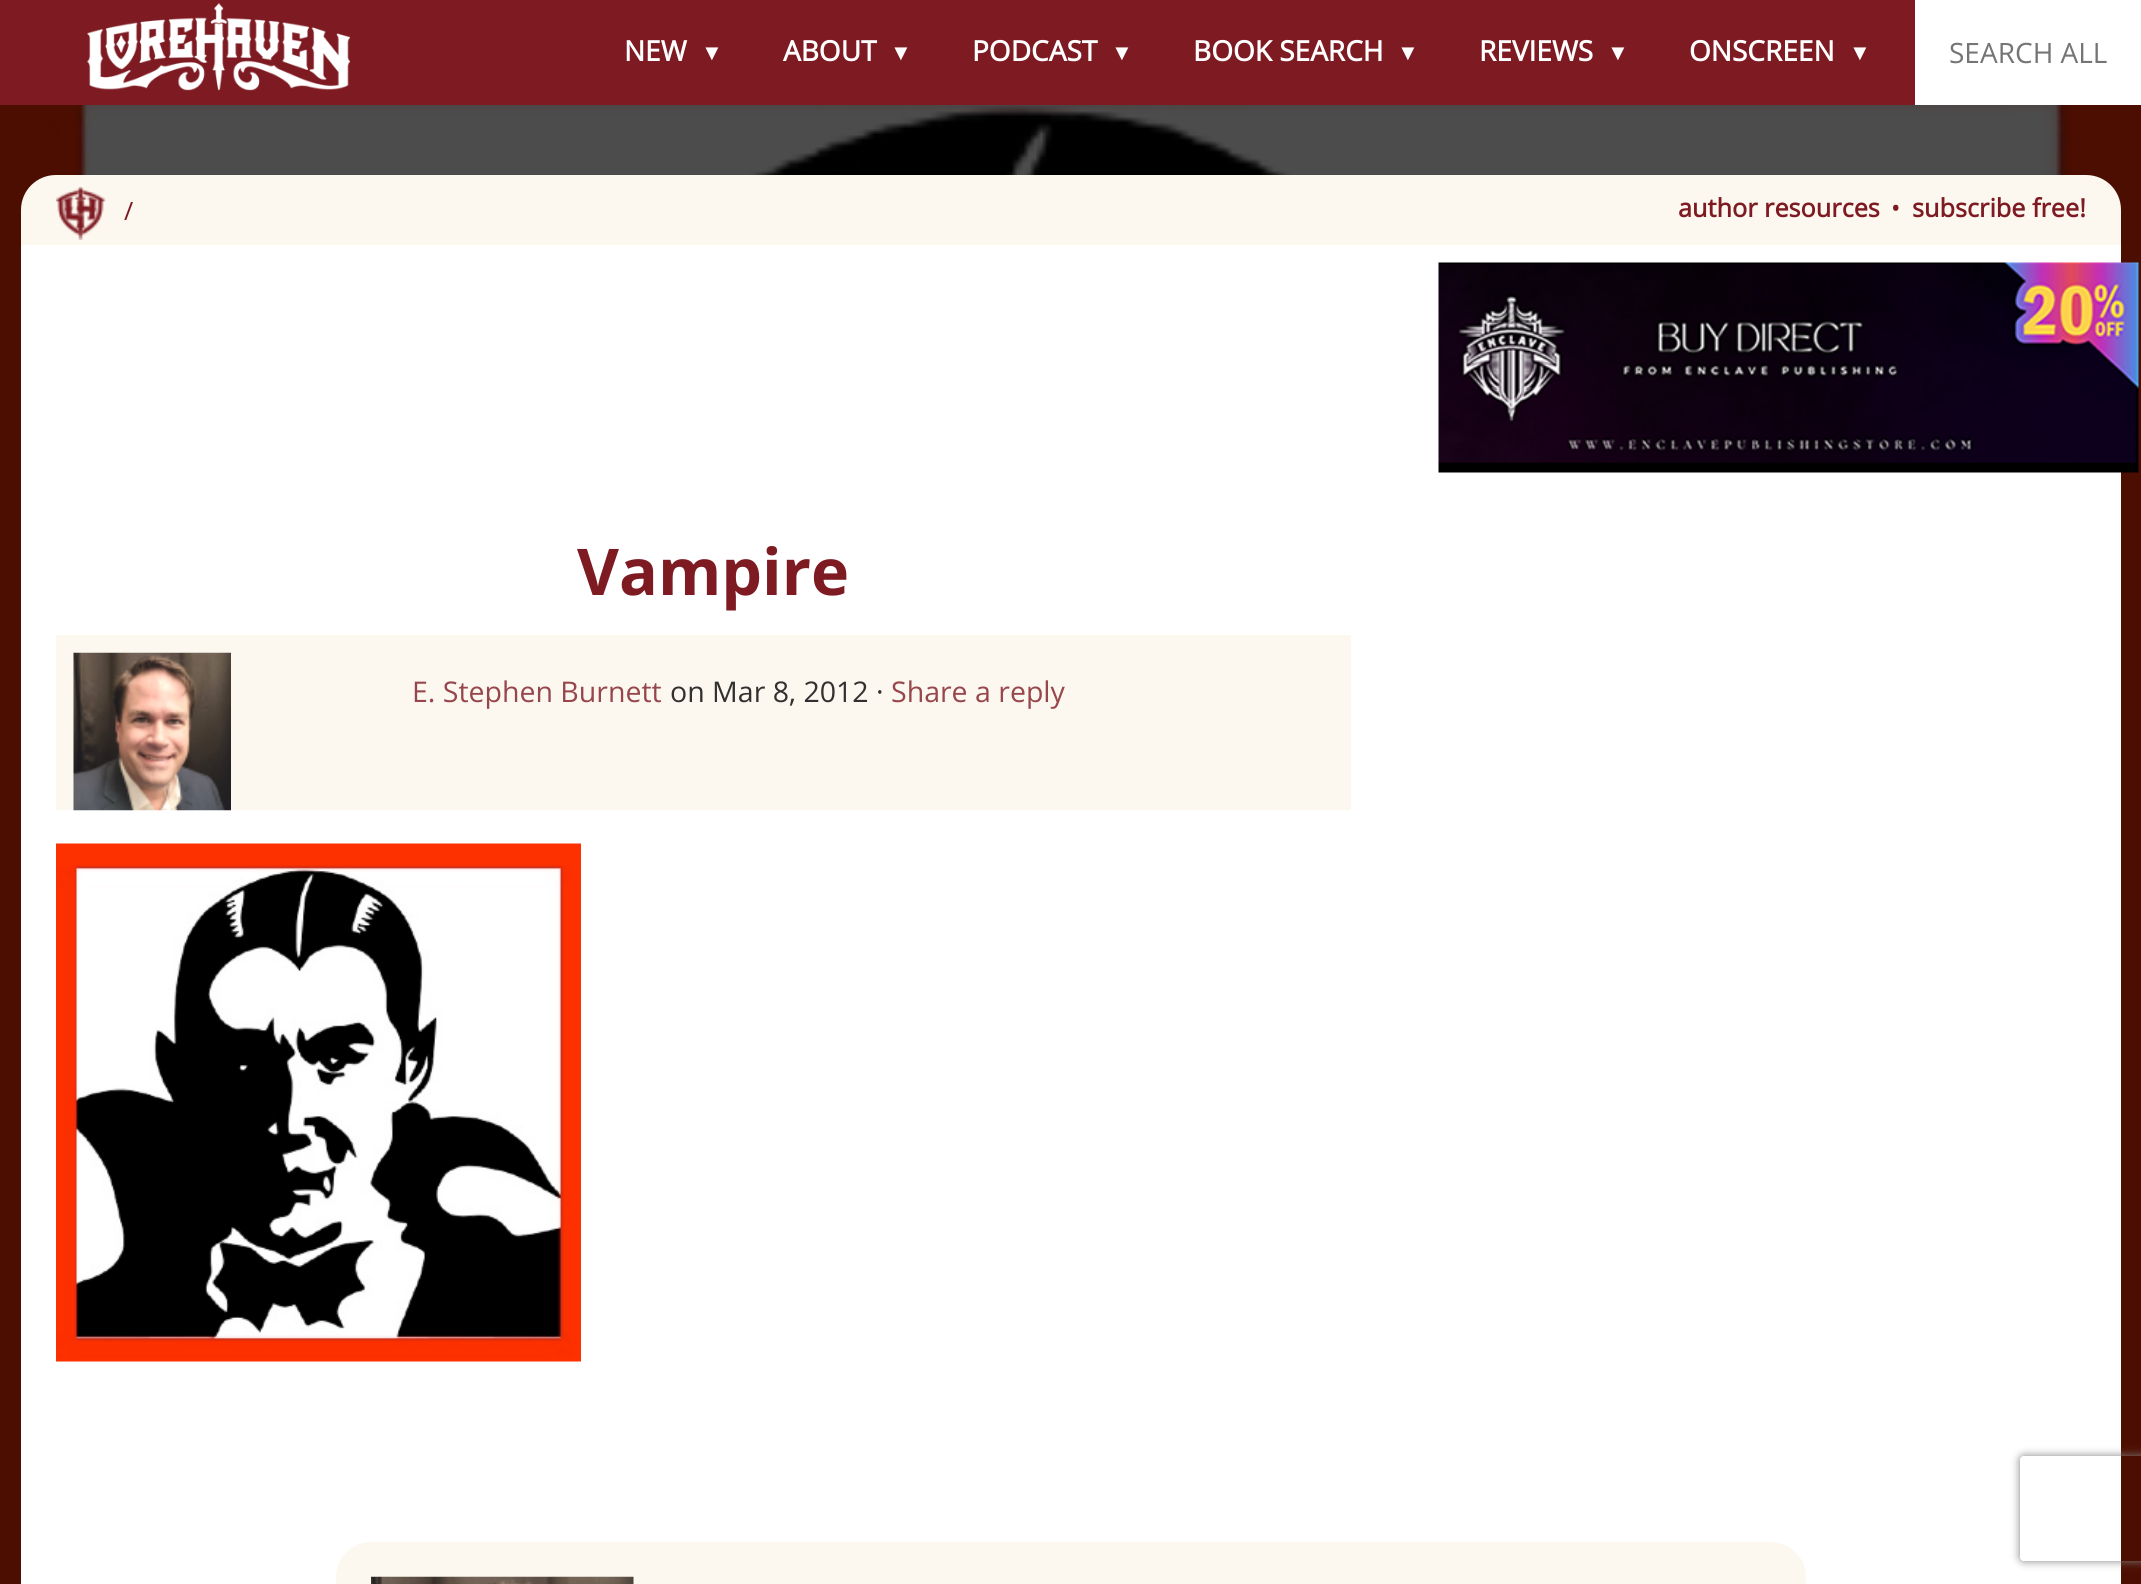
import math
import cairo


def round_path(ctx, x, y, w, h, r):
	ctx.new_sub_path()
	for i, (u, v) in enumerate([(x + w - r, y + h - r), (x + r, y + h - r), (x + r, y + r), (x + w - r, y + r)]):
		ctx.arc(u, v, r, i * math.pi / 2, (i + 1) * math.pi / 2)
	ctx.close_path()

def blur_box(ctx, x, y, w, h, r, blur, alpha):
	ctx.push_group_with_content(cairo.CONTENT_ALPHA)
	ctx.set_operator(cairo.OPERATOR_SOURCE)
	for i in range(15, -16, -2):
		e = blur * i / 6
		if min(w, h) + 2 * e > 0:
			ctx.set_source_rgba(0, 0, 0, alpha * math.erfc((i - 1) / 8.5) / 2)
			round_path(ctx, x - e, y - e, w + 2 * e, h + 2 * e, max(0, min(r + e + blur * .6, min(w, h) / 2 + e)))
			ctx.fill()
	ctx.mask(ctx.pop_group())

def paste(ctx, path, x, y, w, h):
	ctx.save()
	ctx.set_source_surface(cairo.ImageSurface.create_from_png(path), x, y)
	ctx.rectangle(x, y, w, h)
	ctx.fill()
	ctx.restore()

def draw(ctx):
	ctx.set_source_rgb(1, 1, 1)
	ctx.paint()
	ctx.set_source_rgb(0.494, 0.102, 0.133)
	ctx.rectangle(0, 0, 1915, 105)
	ctx.fill()
	paste(ctx, 'media/1.png', 87, 3, 263, 88)
	ctx.select_font_face('Open Sans', cairo.FONT_SLANT_NORMAL, cairo.FONT_WEIGHT_BOLD)
	ctx.set_font_size(28)
	ctx.set_source_rgb(1, 1, 1)
	ctx.move_to(624, 61)
	ctx.show_text('NEW')
	ctx.select_font_face('Liberation Sans', cairo.FONT_SLANT_NORMAL, cairo.FONT_WEIGHT_BOLD)
	ctx.set_font_size(22)
	ctx.move_to(701, 60)
	ctx.show_text('▼')
	ctx.select_font_face('Open Sans', cairo.FONT_SLANT_NORMAL, cairo.FONT_WEIGHT_BOLD)
	ctx.set_font_size(28)
	ctx.move_to(783, 61)
	ctx.show_text('ABOUT')
	ctx.select_font_face('Liberation Sans', cairo.FONT_SLANT_NORMAL, cairo.FONT_WEIGHT_BOLD)
	ctx.set_font_size(22)
	ctx.move_to(890, 60)
	ctx.show_text('▼')
	ctx.select_font_face('Open Sans', cairo.FONT_SLANT_NORMAL, cairo.FONT_WEIGHT_BOLD)
	ctx.set_font_size(28)
	ctx.move_to(972, 61)
	ctx.show_text('PODCAST')
	ctx.select_font_face('Liberation Sans', cairo.FONT_SLANT_NORMAL, cairo.FONT_WEIGHT_BOLD)
	ctx.set_font_size(22)
	ctx.move_to(1111, 60)
	ctx.show_text('▼')
	ctx.select_font_face('Open Sans', cairo.FONT_SLANT_NORMAL, cairo.FONT_WEIGHT_BOLD)
	ctx.set_font_size(28)
	ctx.move_to(1193, 61)
	ctx.show_text('BOOK SEARCH')
	ctx.select_font_face('Liberation Sans', cairo.FONT_SLANT_NORMAL, cairo.FONT_WEIGHT_BOLD)
	ctx.set_font_size(22)
	ctx.move_to(1397, 60)
	ctx.show_text('▼')
	ctx.select_font_face('Open Sans', cairo.FONT_SLANT_NORMAL, cairo.FONT_WEIGHT_BOLD)
	ctx.set_font_size(28)
	ctx.move_to(1479, 61)
	ctx.show_text('REVIEWS')
	ctx.select_font_face('Liberation Sans', cairo.FONT_SLANT_NORMAL, cairo.FONT_WEIGHT_BOLD)
	ctx.set_font_size(22)
	ctx.move_to(1607, 60)
	ctx.show_text('▼')
	ctx.select_font_face('Open Sans', cairo.FONT_SLANT_NORMAL, cairo.FONT_WEIGHT_BOLD)
	ctx.set_font_size(28)
	ctx.move_to(1689, 61)
	ctx.show_text('ONSCREEN')
	ctx.select_font_face('Liberation Sans', cairo.FONT_SLANT_NORMAL, cairo.FONT_WEIGHT_BOLD)
	ctx.set_font_size(22)
	ctx.move_to(1849, 60)
	ctx.show_text('▼')
	ctx.select_font_face('Open Sans')
	ctx.set_font_size(28)
	ctx.set_source_rgb(0.459, 0.459, 0.459)
	ctx.move_to(1949, 63)
	ctx.show_text('SEARCH ALL')
	paste(ctx, 'media/7.png', 0, 105, 2141, 1479)
	ctx.set_source_rgb(1, 1, 1)
	round_path(ctx, 21, 175, 2100, 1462, 53)
	ctx.fill()
	ctx.set_source_rgb(0.988, 0.969, 0.941)
	ctx.new_path()
	ctx.move_to(56, 175)
	ctx.line_to(2086, 175)
	ctx.curve_to(2105.5, 175, 2121, 190.5, 2121, 210)
	ctx.line_to(2121, 245)
	ctx.line_to(21, 245)
	ctx.line_to(21, 210)
	ctx.curve_to(21, 190.5, 36.5, 175, 56, 175)
	ctx.close_path()
	ctx.fill()
	paste(ctx, 'media/2.png', 56, 187, 50, 53)
	ctx.set_font_size(25.25)
	ctx.set_source_rgb(0.494, 0.102, 0.133)
	ctx.move_to(124, 220)
	ctx.show_text('/')
	ctx.select_font_face('Open Sans', cairo.FONT_SLANT_NORMAL, cairo.FONT_WEIGHT_BOLD)
	ctx.move_to(1678, 217)
	ctx.show_text('author resources')
	ctx.select_font_face('Open Sans')
	ctx.move_to(1891, 217)
	ctx.show_text('•')
	ctx.select_font_face('Open Sans', cairo.FONT_SLANT_NORMAL, cairo.FONT_WEIGHT_BOLD)
	ctx.move_to(1912, 217)
	ctx.show_text('subscribe free!')
	paste(ctx, 'media/3.png', 1438, 262, 701, 211)
	ctx.select_font_face('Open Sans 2', cairo.FONT_SLANT_NORMAL, cairo.FONT_WEIGHT_BOLD)
	ctx.set_font_size(64.5)
	ctx.move_to(577, 595)
	ctx.show_text('Vampire')
	ctx.set_source_rgb(0.988, 0.969, 0.941)
	ctx.rectangle(56, 635, 1295, 175)
	ctx.fill()
	paste(ctx, 'media/4.png', 73, 652, 158, 159)
	ctx.select_font_face('Open Sans')
	ctx.set_font_size(28.5)
	ctx.set_source_rgb(0.592, 0.275, 0.294)
	ctx.move_to(412, 702)
	ctx.show_text('E. Stephen Burnett')
	ctx.set_source_rgb(0.196, 0.192, 0.188)
	ctx.move_to(670, 702)
	ctx.show_text('on Mar 8, 2012 ·')
	ctx.set_source_rgb(0.592, 0.275, 0.294)
	ctx.move_to(891, 702)
	ctx.show_text('Share a reply')
	paste(ctx, 'media/5.png', 56, 843, 525, 519)
	ctx.set_source_rgb(0.988, 0.969, 0.941)
	round_path(ctx, 336, 1542, 1470, 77, 35)
	ctx.fill()
	paste(ctx, 'media/6.png', 371, 1576, 263, 8)
	ctx.save()
	ctx.set_fill_rule(cairo.FILL_RULE_EVEN_ODD)
	ctx.new_path()
	ctx.move_to(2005, 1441)
	ctx.line_to(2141, 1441)
	ctx.line_to(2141, 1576)
	ctx.line_to(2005, 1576)
	ctx.close_path()
	ctx.move_to(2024, 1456)
	ctx.line_to(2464, 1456)
	ctx.curve_to(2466, 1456, 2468, 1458, 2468, 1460)
	ctx.line_to(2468, 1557)
	ctx.curve_to(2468, 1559, 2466, 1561, 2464, 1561)
	ctx.line_to(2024, 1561)
	ctx.curve_to(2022, 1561, 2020, 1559, 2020, 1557)
	ctx.line_to(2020, 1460)
	ctx.curve_to(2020, 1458, 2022, 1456, 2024, 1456)
	ctx.close_path()
	ctx.clip()
	ctx.set_source_rgb(0.502, 0.502, 0.502)
	blur_box(ctx, 2020, 1456, 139, 105, 4, 4.5, 1)
	ctx.restore()


surface = cairo.ImageSurface(cairo.FORMAT_RGB24, 2141, 1584)
ctx = cairo.Context(surface)
options = cairo.FontOptions()
options.set_hint_metrics(cairo.HINT_METRICS_OFF)
options.set_hint_style(cairo.HINT_STYLE_NONE)
ctx.set_font_options(options)
ctx.set_miter_limit(4)
draw(ctx)
surface.write_to_png('image.png')
